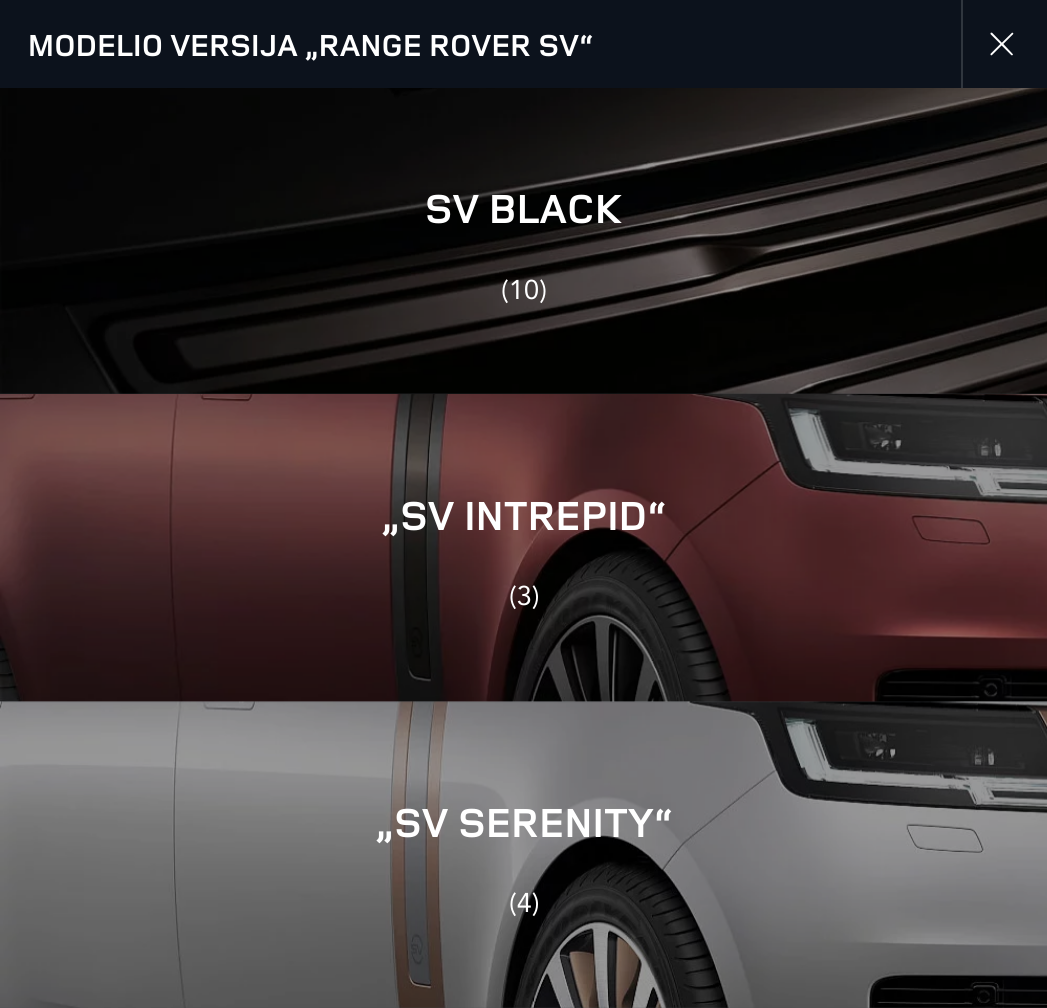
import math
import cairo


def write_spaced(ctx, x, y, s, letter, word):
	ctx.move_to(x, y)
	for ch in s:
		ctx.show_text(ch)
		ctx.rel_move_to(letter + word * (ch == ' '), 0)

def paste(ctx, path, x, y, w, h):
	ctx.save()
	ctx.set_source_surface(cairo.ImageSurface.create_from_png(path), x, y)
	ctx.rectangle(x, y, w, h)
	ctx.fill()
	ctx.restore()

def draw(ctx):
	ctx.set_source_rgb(0.29, 0.31, 0.329)
	ctx.paint()
	ctx.set_source_rgb(0.047, 0.071, 0.11)
	ctx.rectangle(0, 0, 1047, 88)
	ctx.fill()
	ctx.select_font_face('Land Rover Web', cairo.FONT_SLANT_NORMAL, cairo.FONT_WEIGHT_BOLD)
	ctx.set_font_size(31.5)
	ctx.set_source_rgb(1, 1, 1)
	write_spaced(ctx, 28, 56, 'MODELIO VERSIJA „RANGE ROVER SV“', 0.2, 0)
	ctx.set_source_rgb(0.188, 0.212, 0.243)
	ctx.rectangle(961, 0, 2, 88)
	ctx.fill()
	paste(ctx, 'media/1.png', 990, 32, 24, 24)
	paste(ctx, 'media/2.png', 0, 88, 1047, 306)
	ctx.set_source_rgba(0, 0, 0, 0.4)
	ctx.rectangle(0, 88, 1047, 306)
	ctx.fill()
	ctx.set_font_size(42)
	ctx.set_source_rgb(1, 1, 1)
	write_spaced(ctx, 425, 223, 'SV BLACK', 0.3, 0)
	ctx.select_font_face('Avenir')
	ctx.set_font_size(27)
	write_spaced(ctx, 501, 299, '(10)', 0.3, 0)
	paste(ctx, 'media/3.png', 0, 394, 1047, 308)
	ctx.set_source_rgba(0, 0, 0, 0.4)
	ctx.rectangle(0, 394, 1047, 308)
	ctx.fill()
	ctx.select_font_face('Land Rover Web', cairo.FONT_SLANT_NORMAL, cairo.FONT_WEIGHT_BOLD)
	ctx.set_font_size(42)
	ctx.set_source_rgb(1, 1, 1)
	write_spaced(ctx, 382, 530, '„SV INTREPID“', 0.3, 0)
	ctx.select_font_face('Avenir')
	ctx.set_font_size(27)
	write_spaced(ctx, 509, 605, '(3)', 0.3, 0)
	paste(ctx, 'media/4.png', 0, 701, 1047, 307)
	ctx.select_font_face('Land Rover Web', cairo.FONT_SLANT_NORMAL, cairo.FONT_WEIGHT_BOLD)
	ctx.set_font_size(42)
	write_spaced(ctx, 376, 837, '„SV SERENITY“', 0.3, 0)
	ctx.select_font_face('Avenir')
	ctx.set_font_size(27)
	write_spaced(ctx, 509, 912, '(4)', 0.3, 0)


surface = cairo.ImageSurface(cairo.FORMAT_RGB24, 1047, 1008)
ctx = cairo.Context(surface)
options = cairo.FontOptions()
options.set_hint_metrics(cairo.HINT_METRICS_OFF)
options.set_hint_style(cairo.HINT_STYLE_NONE)
ctx.set_font_options(options)
ctx.set_miter_limit(4)
draw(ctx)
surface.write_to_png('image.png')
